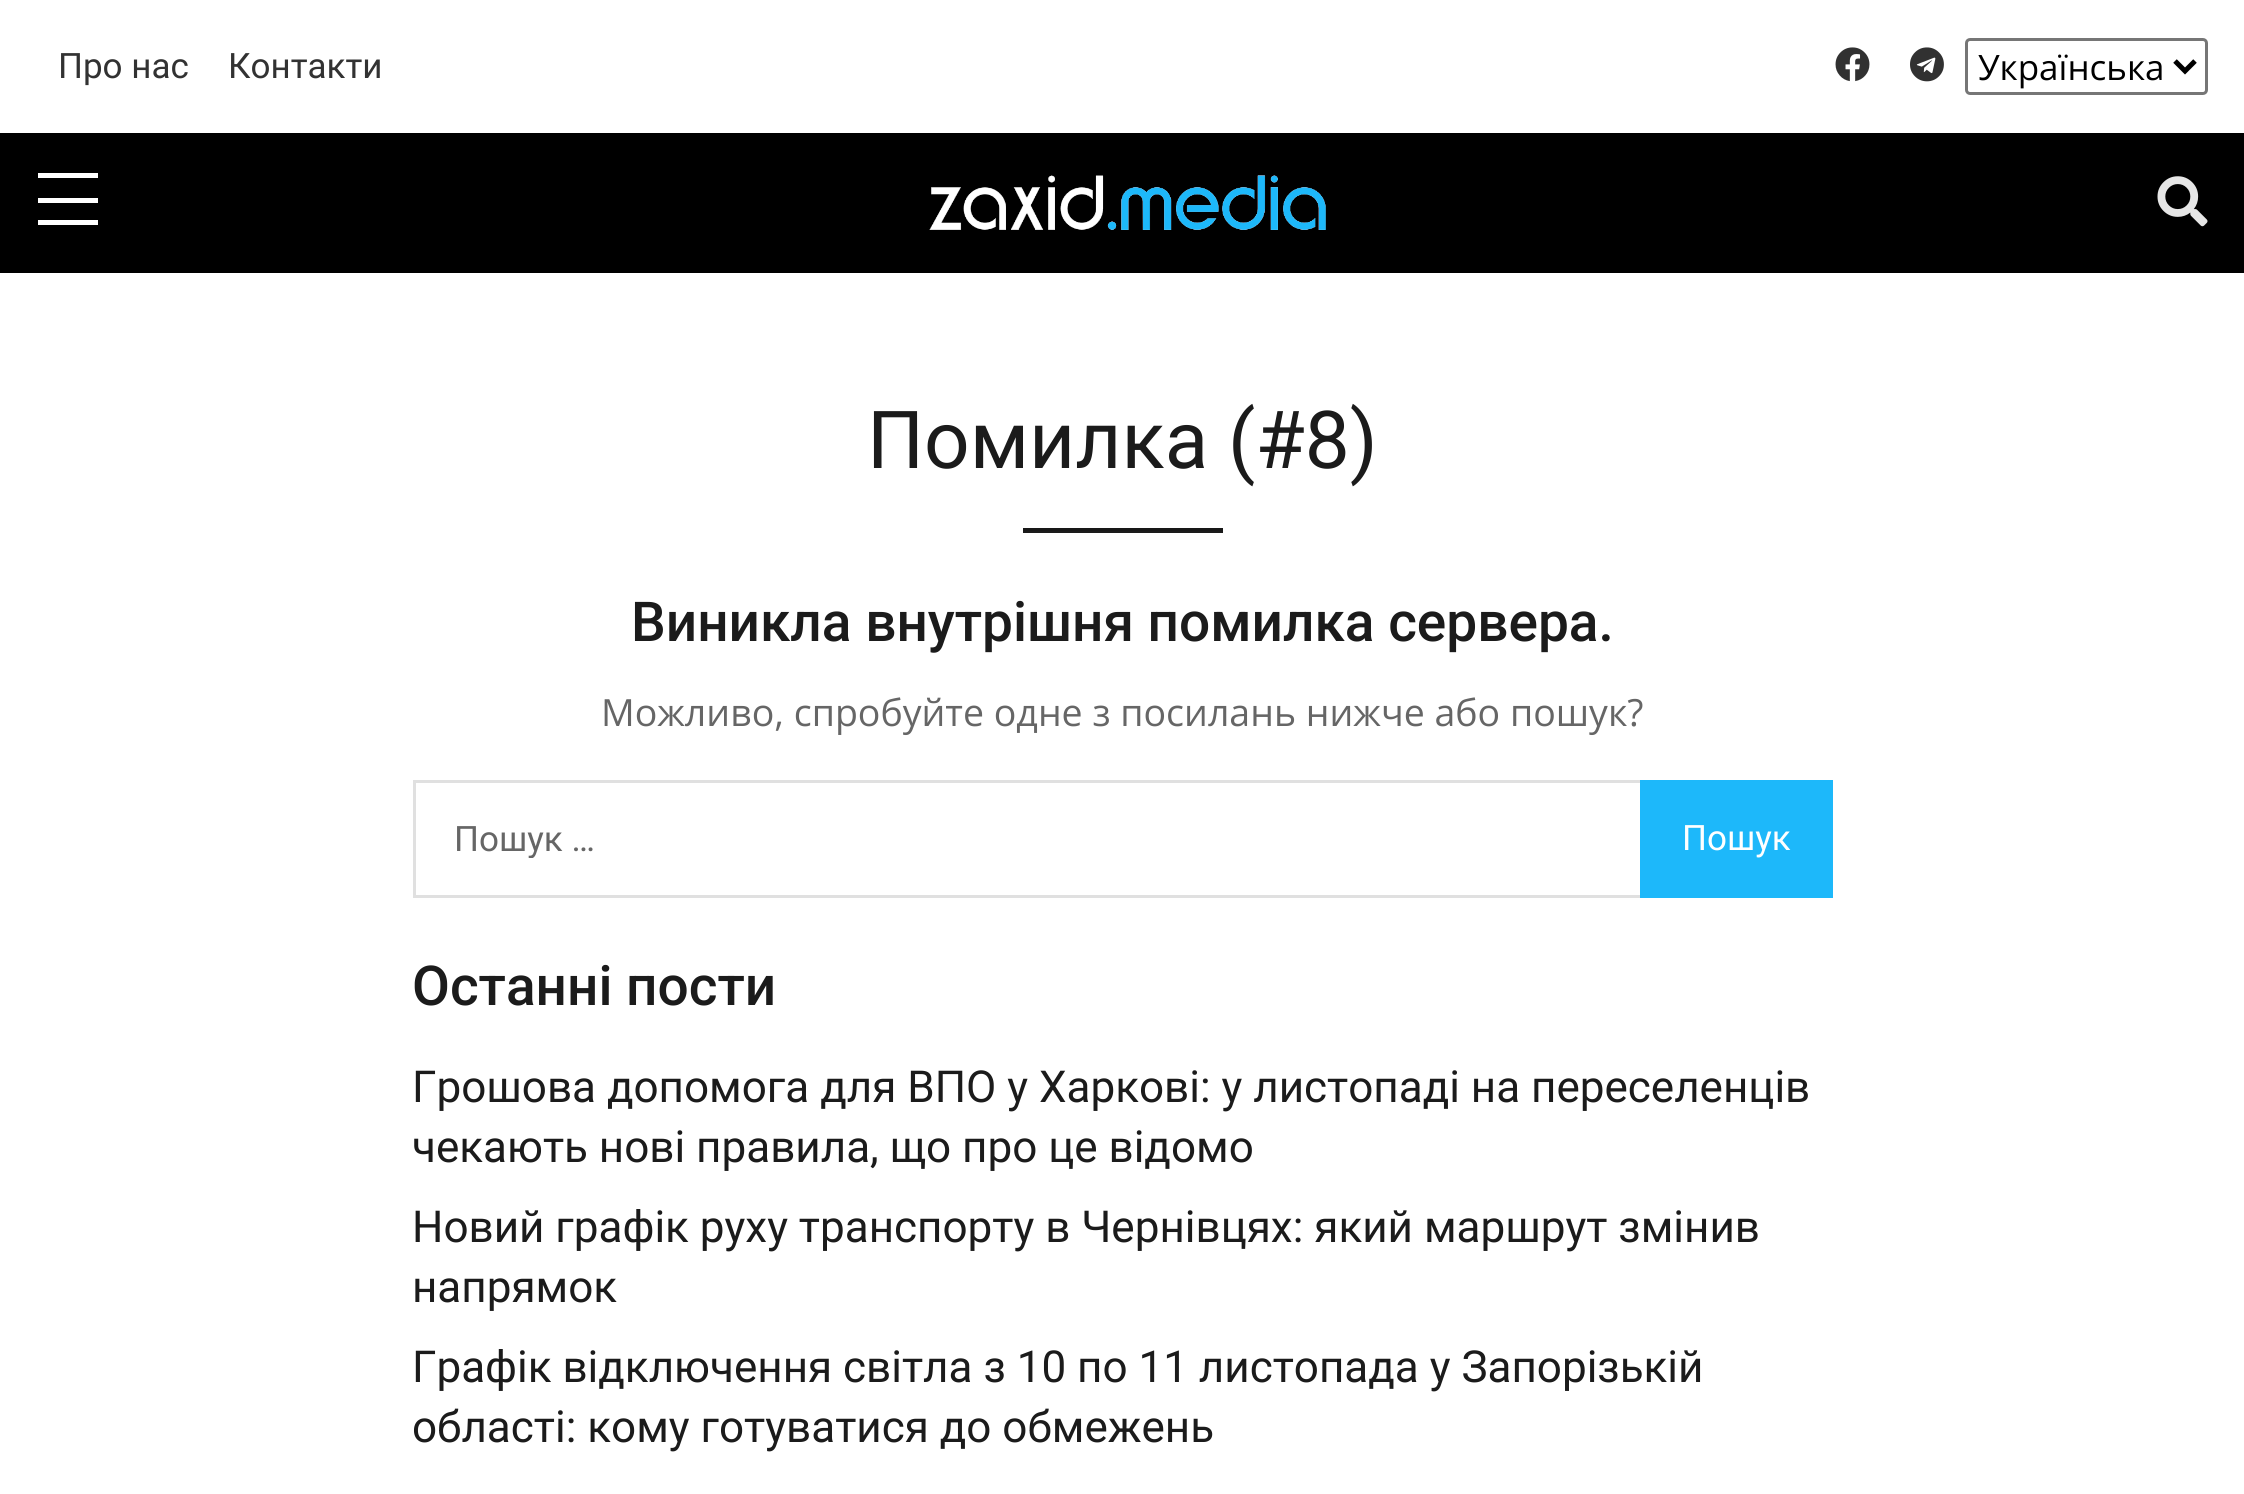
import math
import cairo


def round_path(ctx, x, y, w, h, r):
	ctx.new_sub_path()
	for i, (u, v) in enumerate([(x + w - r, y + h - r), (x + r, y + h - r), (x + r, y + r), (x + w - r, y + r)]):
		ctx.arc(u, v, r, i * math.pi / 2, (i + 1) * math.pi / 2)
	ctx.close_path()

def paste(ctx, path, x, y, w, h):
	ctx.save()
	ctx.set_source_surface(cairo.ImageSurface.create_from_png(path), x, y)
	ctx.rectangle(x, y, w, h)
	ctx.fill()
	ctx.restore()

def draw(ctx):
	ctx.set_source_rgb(1, 1, 1)
	ctx.paint()
	ctx.select_font_face('Roboto')
	ctx.set_font_size(35)
	ctx.set_source_rgb(0.196, 0.196, 0.196)
	ctx.move_to(58, 78)
	ctx.show_text('Про нас')
	ctx.move_to(228, 78)
	ctx.show_text('Контакти')
	paste(ctx, 'media/1.png', 1835, 47, 35, 35)
	paste(ctx, 'media/2.png', 1910, 47, 34, 35)
	round_path(ctx, 1966.5, 39.5, 240, 54, 3.5)
	ctx.set_source_rgb(0.463, 0.463, 0.463)
	ctx.set_line_width(3)
	ctx.stroke()
	ctx.new_path()
	ctx.move_to(2175, 61)
	ctx.line_to(2185, 71)
	ctx.line_to(2195, 61)
	ctx.set_source_rgb(0, 0, 0)
	ctx.set_line_width(5)
	ctx.stroke()
	ctx.select_font_face('Open Sans')
	ctx.move_to(1978, 80)
	ctx.show_text('Українська')
	ctx.rectangle(0, 133, 2244, 140)
	ctx.fill()
	ctx.set_source_rgb(1, 1, 1)
	ctx.rectangle(38, 173, 60, 5)
	ctx.rectangle(38, 198, 60, 5)
	ctx.rectangle(38, 220, 60, 5)
	ctx.fill()
	paste(ctx, 'media/3.png', 929, 175, 397, 55)
	paste(ctx, 'media/4.png', 2157, 176, 51, 51)
	ctx.select_font_face('Roboto')
	ctx.set_font_size(80)
	ctx.set_source_rgb(0.106, 0.106, 0.106)
	ctx.move_to(867, 468)
	ctx.show_text('Помилка (#8)')
	ctx.rectangle(1023, 531, 200, 2)
	ctx.fill()
	ctx.set_source_rgb(0.094, 0.094, 0.094)
	ctx.rectangle(1023, 528, 200, 3)
	ctx.fill()
	ctx.select_font_face('Roboto Medium')
	ctx.set_font_size(55)
	ctx.set_source_rgb(0.106, 0.106, 0.106)
	ctx.move_to(631, 641)
	ctx.show_text('Виникла внутрішня помилка сервера.')
	ctx.select_font_face('Open Sans')
	ctx.set_font_size(37.5)
	ctx.set_source_rgb(0.4, 0.4, 0.4)
	ctx.move_to(601, 726)
	ctx.show_text('Можливо, спробуйте одне з посилань нижче або пошук?')
	ctx.rectangle(414.5, 781.5, 1227, 115)
	ctx.set_source_rgb(0.878, 0.878, 0.878)
	ctx.set_line_width(3)
	ctx.stroke()
	ctx.save()
	ctx.rectangle(455, 818, 1145, 40)
	ctx.clip()
	ctx.select_font_face('Roboto')
	ctx.set_font_size(35)
	ctx.set_source_rgb(0.4, 0.4, 0.4)
	ctx.move_to(454, 851)
	ctx.show_text('Пошук …')
	ctx.restore()
	ctx.set_source_rgb(0.114, 0.722, 0.98)
	ctx.rectangle(1640, 780, 193, 118)
	ctx.fill()
	ctx.select_font_face('Roboto')
	ctx.set_font_size(35)
	ctx.set_source_rgb(1, 1, 1)
	ctx.move_to(1682, 850)
	ctx.show_text('Пошук')
	ctx.select_font_face('Roboto Medium')
	ctx.set_font_size(55)
	ctx.set_source_rgb(0.106, 0.106, 0.106)
	ctx.move_to(412, 1005)
	ctx.show_text('Останні пости')
	ctx.select_font_face('Roboto')
	ctx.set_font_size(44)
	for x, y, s in [
		(412, 1102, 'Грошова допомога для ВПО у Харкові: у листопаді на переселенців'),
		(412, 1162, 'чекають нові правила, що про це відомо'),
		(412, 1242, 'Новий графік руху транспорту в Чернівцях: який маршрут змінив'),
		(412, 1302, 'напрямок'),
		(412, 1382, 'Графік відключення світла з 10 по 11 листопада у Запорізькій'),
		(412, 1442, 'області: кому готуватися до обмежень'),
	]:
		ctx.move_to(x, y)
		ctx.show_text(s)


surface = cairo.ImageSurface(cairo.FORMAT_RGB24, 2244, 1494)
ctx = cairo.Context(surface)
options = cairo.FontOptions()
options.set_hint_metrics(cairo.HINT_METRICS_OFF)
options.set_hint_style(cairo.HINT_STYLE_NONE)
ctx.set_font_options(options)
ctx.set_miter_limit(4)
draw(ctx)
surface.write_to_png('image.png')
